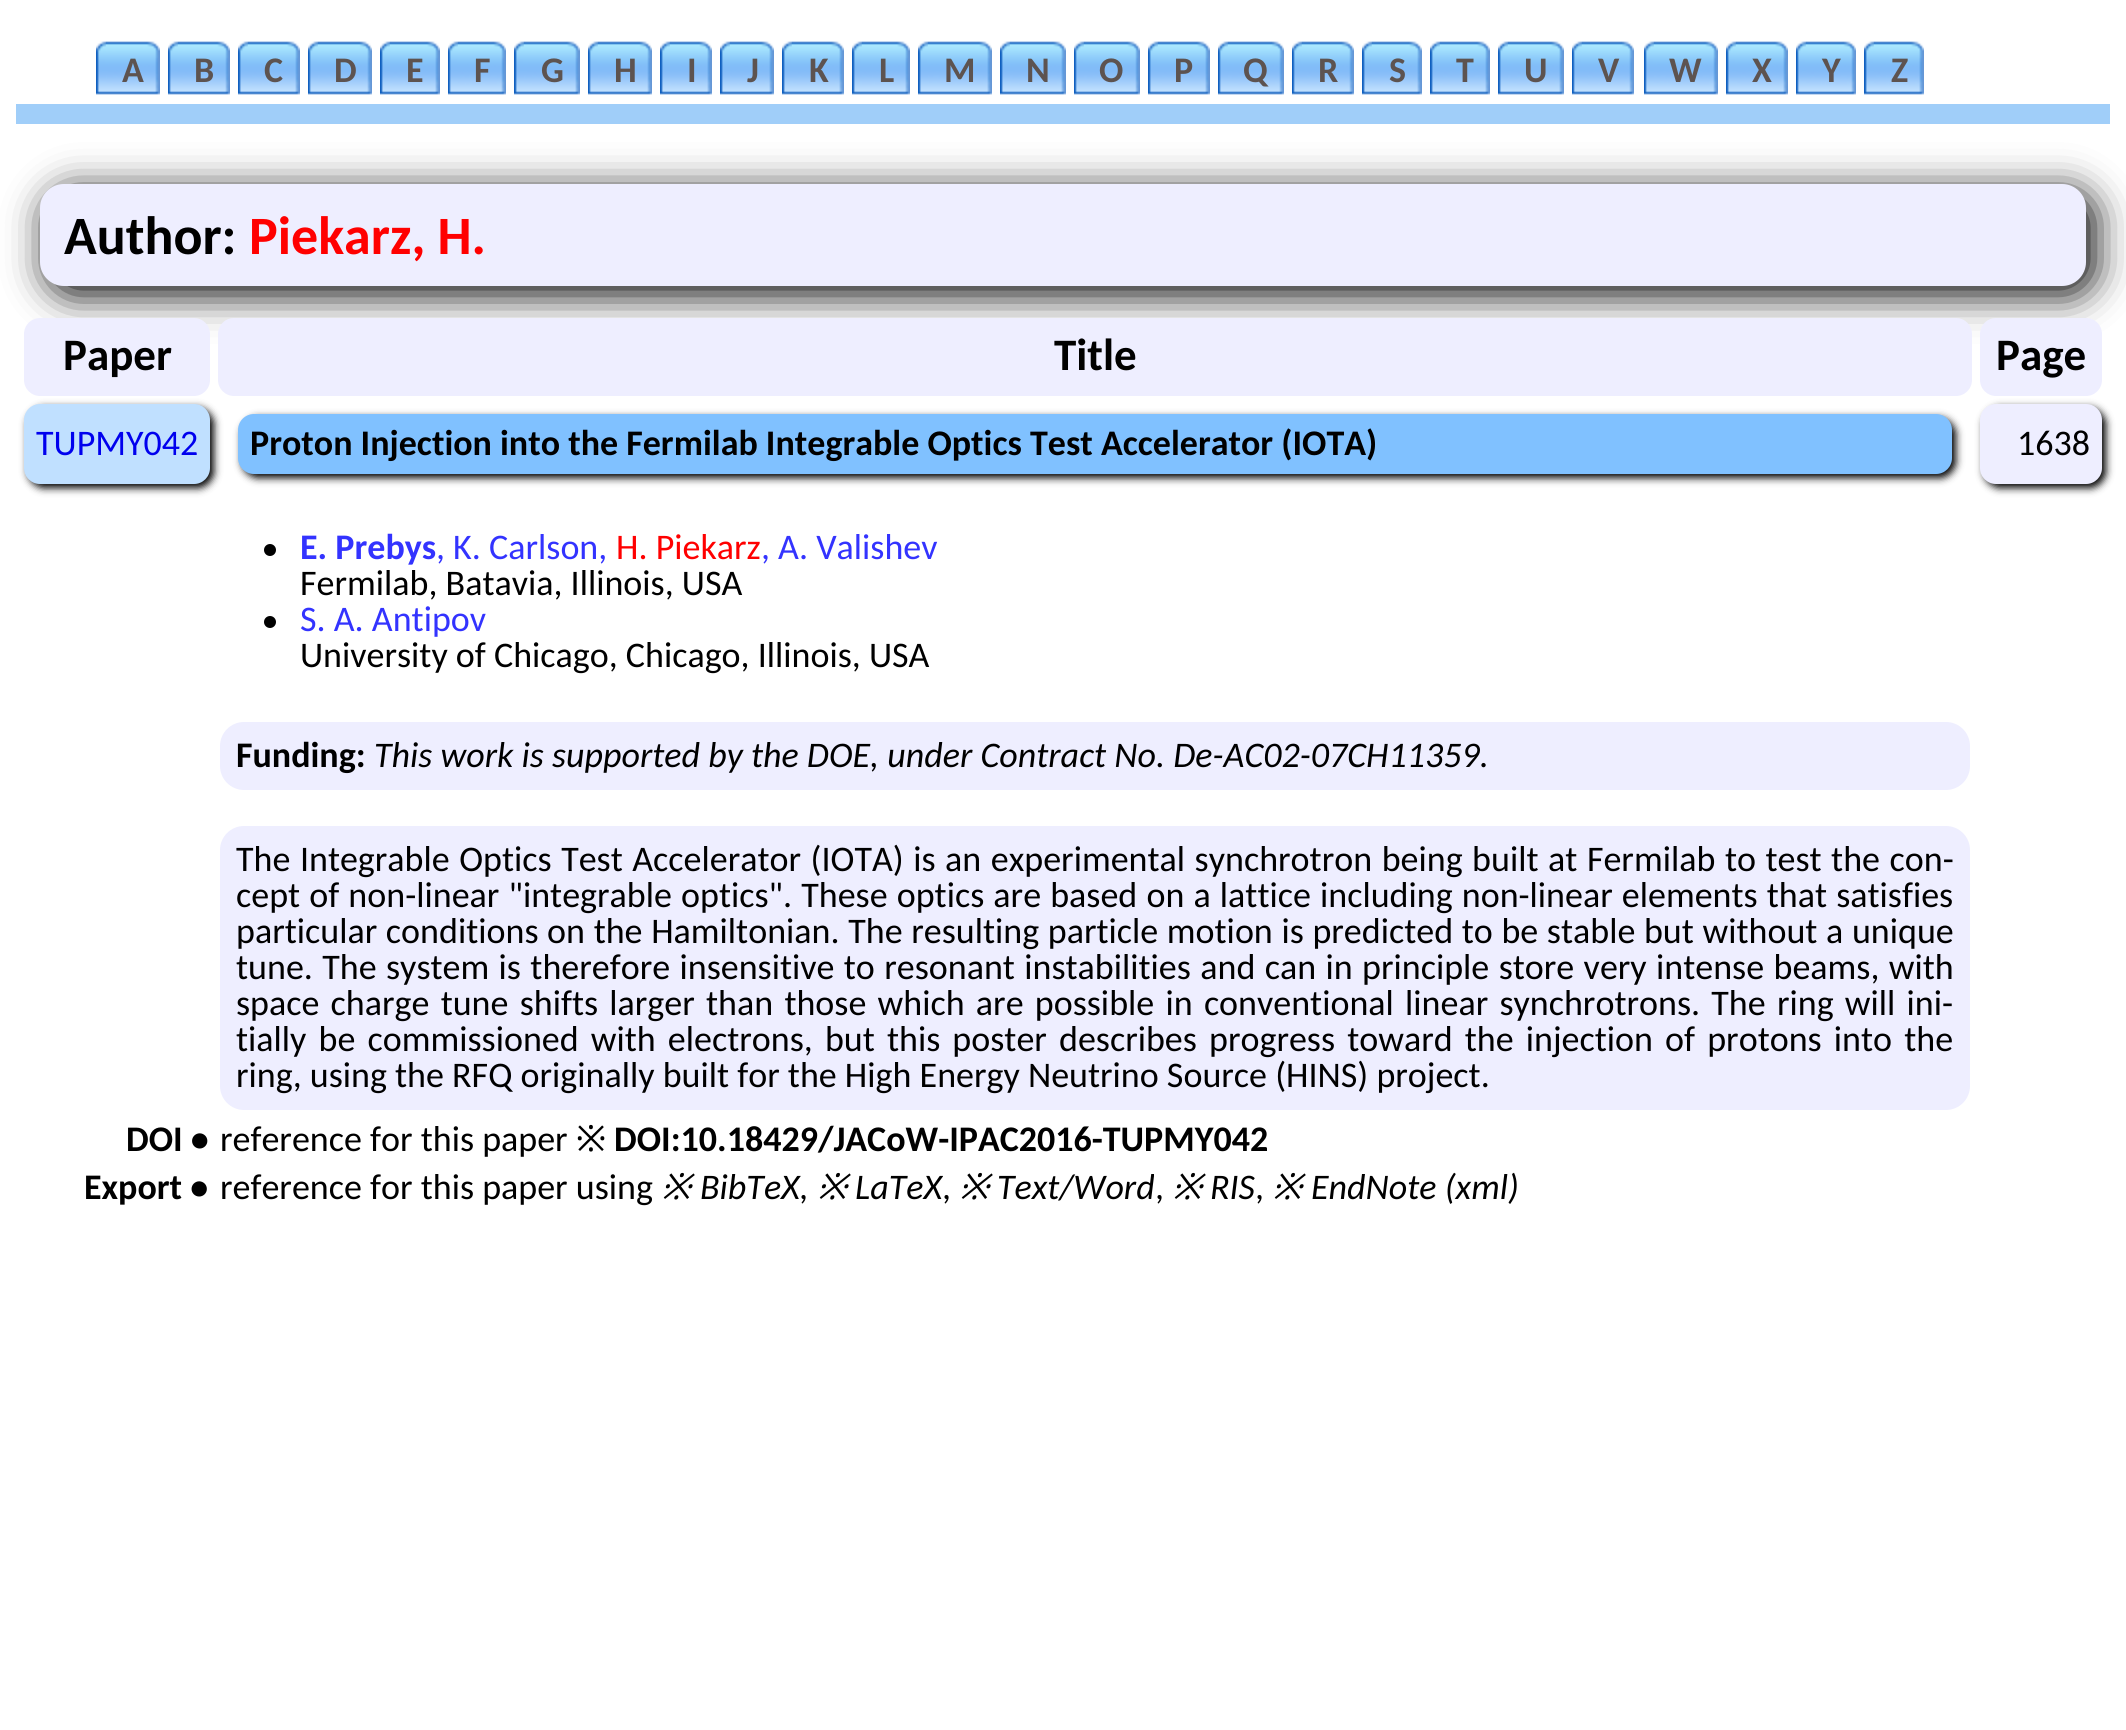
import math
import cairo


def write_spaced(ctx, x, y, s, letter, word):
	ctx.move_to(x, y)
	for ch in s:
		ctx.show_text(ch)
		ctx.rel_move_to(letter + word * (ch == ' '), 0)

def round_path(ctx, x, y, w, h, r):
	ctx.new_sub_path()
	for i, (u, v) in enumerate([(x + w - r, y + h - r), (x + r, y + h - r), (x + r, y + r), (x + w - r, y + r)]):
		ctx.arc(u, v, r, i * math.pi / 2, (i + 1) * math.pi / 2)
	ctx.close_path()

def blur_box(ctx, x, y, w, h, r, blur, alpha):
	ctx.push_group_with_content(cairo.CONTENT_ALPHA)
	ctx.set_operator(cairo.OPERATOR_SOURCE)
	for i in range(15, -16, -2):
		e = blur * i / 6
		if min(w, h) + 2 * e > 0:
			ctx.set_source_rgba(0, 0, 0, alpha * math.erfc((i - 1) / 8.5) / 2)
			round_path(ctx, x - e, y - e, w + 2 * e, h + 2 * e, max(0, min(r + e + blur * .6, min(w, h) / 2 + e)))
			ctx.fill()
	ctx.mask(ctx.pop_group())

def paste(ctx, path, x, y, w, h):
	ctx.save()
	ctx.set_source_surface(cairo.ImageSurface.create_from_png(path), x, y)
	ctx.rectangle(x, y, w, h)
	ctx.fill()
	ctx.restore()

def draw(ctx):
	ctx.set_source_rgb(1, 1, 1)
	ctx.paint()
	ctx.set_source_rgb(0.627, 0.808, 0.973)
	ctx.rectangle(16, 104, 2094, 20)
	ctx.fill()
	paste(ctx, 'media/1.png', 96, 41, 10, 54)
	paste(ctx, 'media/2.png', 106, 41, 54, 54)
	paste(ctx, 'media/3.png', 168, 41, 10, 54)
	paste(ctx, 'media/4.png', 178, 41, 52, 54)
	paste(ctx, 'media/5.png', 238, 41, 10, 54)
	paste(ctx, 'media/6.png', 248, 41, 52, 54)
	paste(ctx, 'media/3.png', 308, 41, 10, 54)
	paste(ctx, 'media/7.png', 318, 41, 54, 54)
	paste(ctx, 'media/1.png', 380, 41, 10, 54)
	paste(ctx, 'media/8.png', 390, 41, 50, 54)
	paste(ctx, 'media/3.png', 448, 41, 10, 54)
	paste(ctx, 'media/9.png', 458, 41, 48, 54)
	paste(ctx, 'media/5.png', 514, 41, 10, 54)
	paste(ctx, 'media/10.png', 524, 41, 56, 54)
	paste(ctx, 'media/3.png', 588, 41, 10, 54)
	paste(ctx, 'media/7.png', 598, 41, 54, 54)
	paste(ctx, 'media/1.png', 660, 41, 10, 54)
	paste(ctx, 'media/11.png', 670, 41, 42, 54)
	paste(ctx, 'media/1.png', 720, 41, 10, 54)
	paste(ctx, 'media/12.png', 730, 41, 44, 54)
	paste(ctx, 'media/1.png', 782, 41, 10, 54)
	paste(ctx, 'media/13.png', 792, 41, 52, 54)
	paste(ctx, 'media/1.png', 852, 41, 10, 54)
	paste(ctx, 'media/14.png', 862, 41, 48, 54)
	paste(ctx, 'media/1.png', 918, 41, 10, 54)
	paste(ctx, 'media/15.png', 928, 41, 64, 54)
	paste(ctx, 'media/1.png', 1000, 41, 10, 54)
	paste(ctx, 'media/16.png', 1010, 41, 56, 54)
	paste(ctx, 'media/3.png', 1074, 41, 10, 54)
	paste(ctx, 'media/17.png', 1084, 41, 56, 54)
	paste(ctx, 'media/1.png', 1148, 41, 10, 54)
	paste(ctx, 'media/18.png', 1158, 41, 52, 54)
	paste(ctx, 'media/3.png', 1218, 41, 10, 54)
	paste(ctx, 'media/19.png', 1228, 41, 56, 54)
	paste(ctx, 'media/3.png', 1292, 41, 10, 54)
	paste(ctx, 'media/20.png', 1302, 41, 52, 54)
	paste(ctx, 'media/5.png', 1362, 41, 10, 54)
	paste(ctx, 'media/21.png', 1372, 41, 50, 54)
	paste(ctx, 'media/1.png', 1430, 41, 10, 54)
	paste(ctx, 'media/22.png', 1440, 41, 50, 54)
	paste(ctx, 'media/1.png', 1498, 41, 10, 54)
	paste(ctx, 'media/23.png', 1508, 41, 56, 54)
	paste(ctx, 'media/24.png', 1572, 41, 10, 54)
	paste(ctx, 'media/25.png', 1582, 41, 52, 54)
	paste(ctx, 'media/3.png', 1644, 41, 10, 54)
	paste(ctx, 'media/26.png', 1654, 41, 64, 54)
	paste(ctx, 'media/1.png', 1726, 41, 10, 54)
	paste(ctx, 'media/27.png', 1736, 41, 52, 54)
	paste(ctx, 'media/3.png', 1796, 41, 10, 54)
	paste(ctx, 'media/28.png', 1806, 41, 50, 54)
	paste(ctx, 'media/1.png', 1864, 41, 10, 54)
	paste(ctx, 'media/29.png', 1874, 41, 50, 54)
	ctx.select_font_face('Carlito', cairo.FONT_SLANT_NORMAL, cairo.FONT_WEIGHT_BOLD)
	ctx.set_font_size(36)
	ctx.set_source_rgb(0.365, 0.325, 0.314)
	for x, y, s in [
		(122, 82, 'A'),
		(194, 82, 'B'),
		(264, 82, 'C'),
		(334, 82, 'D'),
		(406, 82, 'E'),
		(474, 82, 'F'),
		(541, 82, 'G'),
		(614, 82, 'H'),
		(687, 82, 'I'),
		(747, 82, 'J'),
		(809, 82, 'K'),
		(879, 82, 'L'),
		(944, 82, 'M'),
		(1026, 82, 'N'),
		(1099, 82, 'O'),
		(1174, 82, 'P'),
		(1243, 82, 'Q'),
		(1318, 82, 'R'),
		(1389, 82, 'S'),
		(1456, 82, 'T'),
		(1524, 82, 'U'),
		(1598, 82, 'V'),
		(1669, 82, 'W'),
		(1752, 82, 'X'),
		(1822, 82, 'Y'),
		(1891, 82, 'Z'),
	]:
		ctx.move_to(x, y)
		ctx.show_text(s)
	ctx.set_source_rgb(0, 0, 0)
	blur_box(ctx, 48, 192, 2046, 102, 24, 20, 1)
	ctx.set_source_rgb(0.933, 0.933, 1)
	round_path(ctx, 40, 184, 2046, 102, 24)
	ctx.fill()
	ctx.set_font_size(54)
	ctx.set_source_rgb(0, 0, 0)
	ctx.move_to(64, 254)
	ctx.show_text('Author:')
	ctx.set_source_rgb(1, 0, 0)
	ctx.move_to(249, 254)
	ctx.show_text('Piekarz, H.')
	ctx.set_source_rgb(0.933, 0.933, 1)
	round_path(ctx, 24, 318, 186, 78, 16)
	ctx.fill()
	ctx.set_font_size(45)
	ctx.set_source_rgb(0, 0, 0)
	ctx.move_to(63, 370)
	ctx.show_text('Paper')
	ctx.set_source_rgb(0.933, 0.933, 1)
	round_path(ctx, 218, 318, 1754, 78, 16)
	ctx.fill()
	ctx.set_source_rgb(0, 0, 0)
	ctx.move_to(1054, 370)
	ctx.show_text('Title')
	ctx.set_source_rgb(0.933, 0.933, 1)
	round_path(ctx, 1980, 318, 122, 78, 16)
	ctx.fill()
	ctx.set_source_rgb(0, 0, 0)
	ctx.move_to(1996, 370)
	ctx.show_text('Page')
	ctx.set_source_rgb(0, 0, 0)
	blur_box(ctx, 28, 408, 186, 80, 16, 4, 1)
	ctx.set_source_rgb(0.753, 0.878, 1)
	round_path(ctx, 24, 404, 186, 80, 16)
	ctx.fill()
	ctx.select_font_face('Carlito')
	ctx.set_font_size(36)
	ctx.set_source_rgb(0, 0, 0.933)
	ctx.move_to(36, 455)
	ctx.show_text('TUPMY042')
	ctx.set_source_rgb(0, 0, 0)
	blur_box(ctx, 242, 418, 1714, 60, 16, 4, 1)
	ctx.set_source_rgb(0.502, 0.757, 1)
	round_path(ctx, 238, 414, 1714, 60, 16)
	ctx.fill()
	ctx.select_font_face('Carlito', cairo.FONT_SLANT_NORMAL, cairo.FONT_WEIGHT_BOLD)
	ctx.set_source_rgb(0, 0, 0)
	ctx.move_to(250, 455)
	ctx.show_text('Proton Injection into the Fermilab Integrable Optics Test Accelerator (IOTA)')
	ctx.set_source_rgb(0, 0, 0)
	blur_box(ctx, 1984, 408, 122, 80, 16, 4, 1)
	ctx.set_source_rgb(0.933, 0.933, 1)
	round_path(ctx, 1980, 404, 122, 80, 16)
	ctx.fill()
	ctx.select_font_face('Carlito')
	ctx.set_source_rgb(0, 0, 0)
	ctx.move_to(2017, 455)
	ctx.show_text('1638')
	ctx.new_path()
	ctx.arc(270, 550, 6, 0, 2 * math.pi)
	ctx.fill()
	ctx.select_font_face('Carlito', cairo.FONT_SLANT_NORMAL, cairo.FONT_WEIGHT_BOLD)
	ctx.set_source_rgb(0.2, 0.2, 1)
	ctx.move_to(300, 559)
	ctx.show_text('E. Prebys')
	ctx.select_font_face('Carlito')
	ctx.move_to(436, 559)
	ctx.show_text(', K. Carlson,')
	ctx.set_source_rgb(1, 0, 0)
	ctx.move_to(616, 559)
	ctx.show_text('H. Piekarz')
	ctx.set_source_rgb(0.2, 0.2, 1)
	ctx.move_to(761, 559)
	ctx.show_text(', A. Valishev')
	ctx.set_source_rgb(0, 0, 0)
	ctx.move_to(300, 595)
	ctx.show_text('Fermilab, Batavia, Illinois, USA')
	ctx.new_path()
	ctx.arc(270, 622, 6, 0, 2 * math.pi)
	ctx.fill()
	ctx.set_source_rgb(0.2, 0.2, 1)
	ctx.move_to(300, 631)
	ctx.show_text('S. A. Antipov')
	ctx.set_source_rgb(0, 0, 0)
	ctx.move_to(300, 667)
	ctx.show_text('University of Chicago, Chicago, Illinois, USA')
	ctx.set_source_rgb(0.933, 0.933, 1)
	round_path(ctx, 220, 722, 1750, 68, 24)
	ctx.fill()
	ctx.select_font_face('Carlito', cairo.FONT_SLANT_NORMAL, cairo.FONT_WEIGHT_BOLD)
	ctx.set_source_rgb(0, 0, 0)
	ctx.move_to(236, 767)
	ctx.show_text('Funding:')
	ctx.select_font_face('Carlito', cairo.FONT_SLANT_ITALIC)
	ctx.move_to(374, 767)
	ctx.show_text('This work is supported by the DOE, under Contract No. De-AC02-07CH11359.')
	ctx.set_source_rgb(0.933, 0.933, 1)
	round_path(ctx, 220, 826, 1750, 284, 24)
	ctx.fill()
	ctx.select_font_face('Carlito')
	ctx.set_source_rgb(0, 0, 0)
	write_spaced(ctx, 236, 871, 'The Integrable Optics Test Accelerator (IOTA) is an experimental synchrotron being built at Fermilab to test the con-', 0, 1.4)
	write_spaced(ctx, 236, 907, 'cept of non-linear "integrable optics". These optics are based on a lattice including non-linear elements that satisfies', 0, 1)
	write_spaced(ctx, 236, 943, 'particular conditions on the Hamiltonian. The resulting particle motion is predicted to be stable but without a unique', 0, 0.5)
	write_spaced(ctx, 236, 979, 'tune. The system is therefore insensitive to resonant instabilities and can in principle store very intense beams, with', 0, 1.25)
	write_spaced(ctx, 236, 1015, 'space charge tune shifts larger than those which are possible in conventional linear synchrotrons. The ring will ini-', 0, 3.1)
	write_spaced(ctx, 236, 1051, 'tially be commissioned with electrons, but this poster describes progress toward the injection of protons into the', 0, 4)
	ctx.move_to(236, 1087)
	ctx.show_text('ring, using the RFQ originally built for the High Energy Neutrino Source (HINS) project.')
	ctx.select_font_face('Carlito', cairo.FONT_SLANT_NORMAL, cairo.FONT_WEIGHT_BOLD)
	ctx.move_to(126, 1151)
	ctx.show_text('DOI •')
	ctx.select_font_face('Carlito')
	ctx.move_to(220, 1151)
	ctx.show_text('reference for this paper')
	ctx.select_font_face('Noto Sans')
	ctx.move_to(576, 1151)
	ctx.show_text('※')
	ctx.select_font_face('Carlito', cairo.FONT_SLANT_NORMAL, cairo.FONT_WEIGHT_BOLD)
	ctx.move_to(614, 1151)
	ctx.show_text('DOI:10.18429/JACoW-IPAC2016-TUPMY042')
	ctx.move_to(84, 1199)
	ctx.show_text('Export •')
	ctx.select_font_face('Carlito')
	ctx.move_to(220, 1199)
	ctx.show_text('reference for this paper using')
	ctx.select_font_face('Noto Sans', cairo.FONT_SLANT_ITALIC)
	ctx.move_to(661, 1199)
	ctx.show_text('※')
	ctx.select_font_face('Carlito', cairo.FONT_SLANT_ITALIC)
	ctx.move_to(700, 1199)
	ctx.show_text('BibTeX')
	ctx.select_font_face('Carlito')
	ctx.move_to(799, 1199)
	ctx.show_text(',')
	ctx.select_font_face('Noto Sans', cairo.FONT_SLANT_ITALIC)
	ctx.move_to(817, 1199)
	ctx.show_text('※')
	ctx.select_font_face('Carlito', cairo.FONT_SLANT_ITALIC)
	ctx.move_to(855, 1199)
	ctx.show_text('LaTeX')
	ctx.select_font_face('Carlito')
	ctx.move_to(942, 1199)
	ctx.show_text(',')
	ctx.select_font_face('Noto Sans', cairo.FONT_SLANT_ITALIC)
	ctx.move_to(959, 1199)
	ctx.show_text('※')
	ctx.select_font_face('Carlito', cairo.FONT_SLANT_ITALIC)
	ctx.move_to(997, 1199)
	ctx.show_text('Text/Word')
	ctx.select_font_face('Carlito')
	ctx.move_to(1155, 1199)
	ctx.show_text(',')
	ctx.select_font_face('Noto Sans', cairo.FONT_SLANT_ITALIC)
	ctx.move_to(1172, 1199)
	ctx.show_text('※')
	ctx.select_font_face('Carlito', cairo.FONT_SLANT_ITALIC)
	ctx.move_to(1210, 1199)
	ctx.show_text('RIS')
	ctx.select_font_face('Carlito')
	ctx.move_to(1255, 1199)
	ctx.show_text(',')
	ctx.select_font_face('Noto Sans', cairo.FONT_SLANT_ITALIC)
	ctx.move_to(1272, 1199)
	ctx.show_text('※')
	ctx.select_font_face('Carlito', cairo.FONT_SLANT_ITALIC)
	ctx.move_to(1311, 1199)
	ctx.show_text('EndNote (xml)')


surface = cairo.ImageSurface(cairo.FORMAT_RGB24, 2126, 1730)
ctx = cairo.Context(surface)
options = cairo.FontOptions()
options.set_hint_metrics(cairo.HINT_METRICS_OFF)
options.set_hint_style(cairo.HINT_STYLE_NONE)
ctx.set_font_options(options)
ctx.set_miter_limit(4)
draw(ctx)
surface.write_to_png('image.png')
